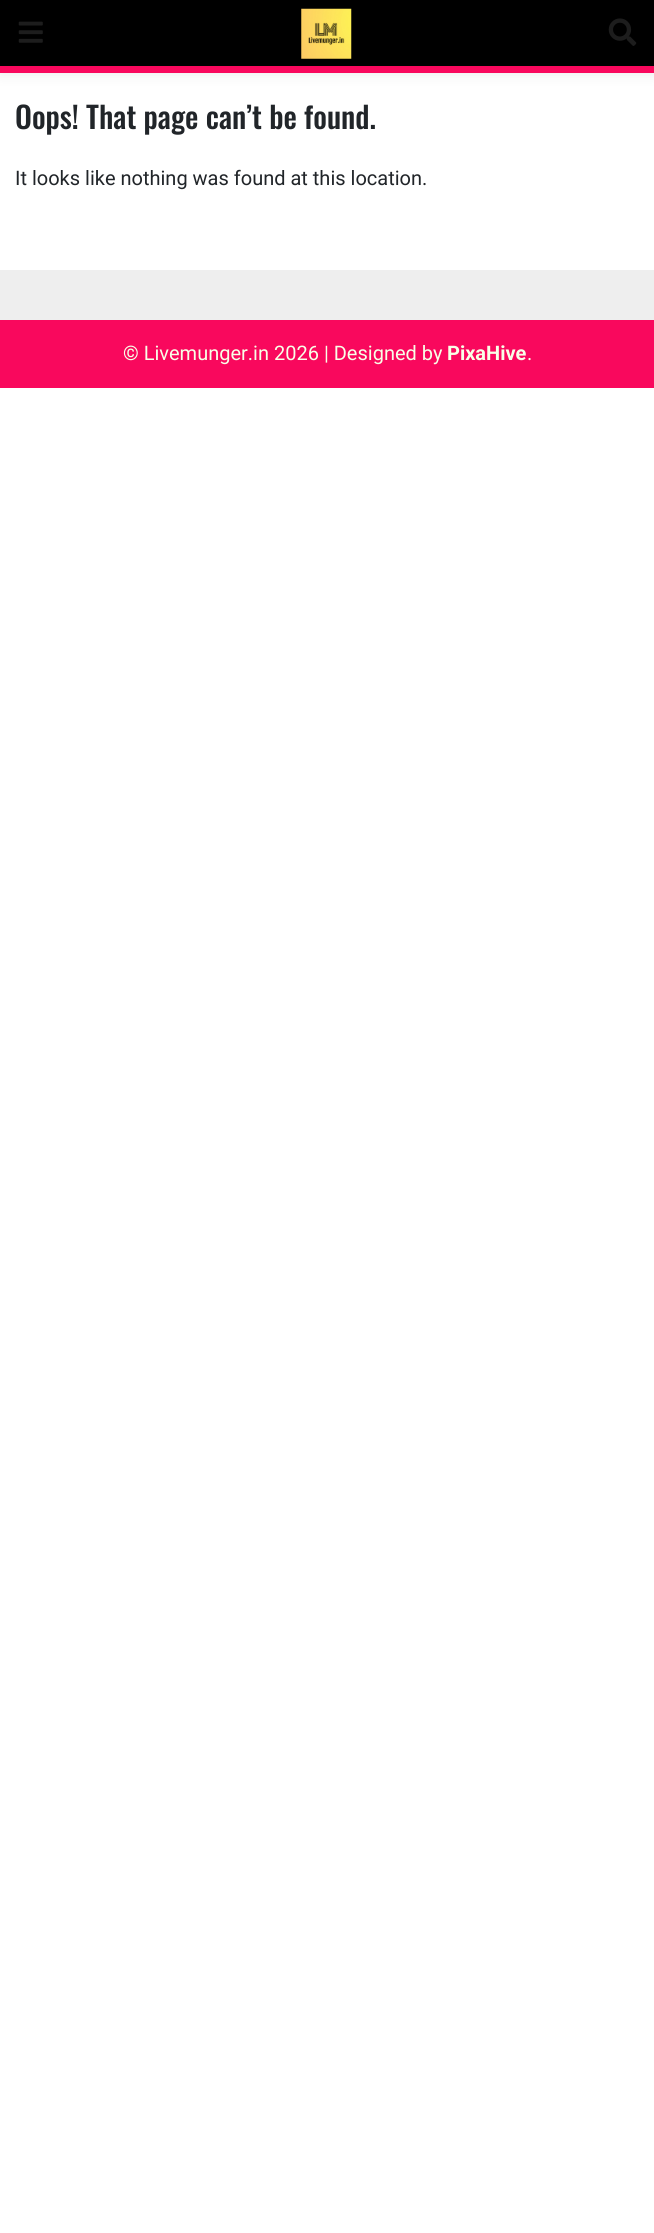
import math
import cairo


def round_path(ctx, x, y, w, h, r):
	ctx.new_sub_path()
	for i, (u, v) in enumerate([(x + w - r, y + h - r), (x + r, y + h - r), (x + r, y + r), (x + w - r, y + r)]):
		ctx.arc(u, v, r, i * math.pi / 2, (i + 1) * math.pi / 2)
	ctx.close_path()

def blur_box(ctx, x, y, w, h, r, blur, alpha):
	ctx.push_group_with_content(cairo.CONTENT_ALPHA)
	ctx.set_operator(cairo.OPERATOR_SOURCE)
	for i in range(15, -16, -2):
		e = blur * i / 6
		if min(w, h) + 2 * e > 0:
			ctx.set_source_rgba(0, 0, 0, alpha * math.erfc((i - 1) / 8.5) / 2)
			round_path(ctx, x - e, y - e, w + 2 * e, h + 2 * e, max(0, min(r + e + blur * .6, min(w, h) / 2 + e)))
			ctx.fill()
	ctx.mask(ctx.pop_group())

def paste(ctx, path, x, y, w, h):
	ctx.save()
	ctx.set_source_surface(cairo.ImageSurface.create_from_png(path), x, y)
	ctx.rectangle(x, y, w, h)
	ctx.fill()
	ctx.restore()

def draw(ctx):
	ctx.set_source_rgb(1, 1, 1)
	ctx.paint()
	ctx.set_source_rgb(0.933, 0.933, 0.933)
	blur_box(ctx, 0, 3, 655, 72, 0, 6, 1)
	ctx.set_source_rgb(0, 0, 0)
	ctx.rectangle(0, 0, 654, 66)
	ctx.fill()
	ctx.set_source_rgb(0.976, 0.035, 0.365)
	ctx.rectangle(0, 66, 654, 7)
	ctx.fill()
	paste(ctx, 'media/1.png', 18, 21, 25, 22)
	paste(ctx, 'media/2.png', 301, 8, 51, 51)
	paste(ctx, 'media/3.png', 608, 18, 29, 28)
	ctx.select_font_face('Oswald Medium')
	ctx.set_font_size(30)
	ctx.set_source_rgb(0.129, 0.145, 0.161)
	ctx.move_to(15, 129)
	ctx.show_text('Oops! That page can’t be found.')
	ctx.select_font_face('Roboto')
	ctx.set_font_size(20)
	ctx.move_to(15, 185)
	ctx.show_text('It looks like nothing was found at this location.')
	ctx.set_source_rgb(0.933, 0.933, 0.933)
	ctx.rectangle(0, 270, 654, 50)
	ctx.fill()
	ctx.set_source_rgb(0.976, 0.035, 0.365)
	ctx.rectangle(0, 320, 654, 68)
	ctx.fill()
	ctx.set_source_rgb(0.976, 1, 0.906)
	ctx.move_to(123, 360)
	ctx.show_text('© Livemunger.in 2026 | Designed by')
	ctx.select_font_face('Roboto', cairo.FONT_SLANT_NORMAL, cairo.FONT_WEIGHT_BOLD)
	ctx.move_to(447, 360)
	ctx.show_text('PixaHive')
	ctx.select_font_face('Roboto')
	ctx.move_to(527, 360)
	ctx.show_text('.')


surface = cairo.ImageSurface(cairo.FORMAT_RGB24, 654, 2233)
ctx = cairo.Context(surface)
options = cairo.FontOptions()
options.set_hint_metrics(cairo.HINT_METRICS_OFF)
options.set_hint_style(cairo.HINT_STYLE_NONE)
ctx.set_font_options(options)
ctx.set_miter_limit(4)
draw(ctx)
surface.write_to_png('image.png')
